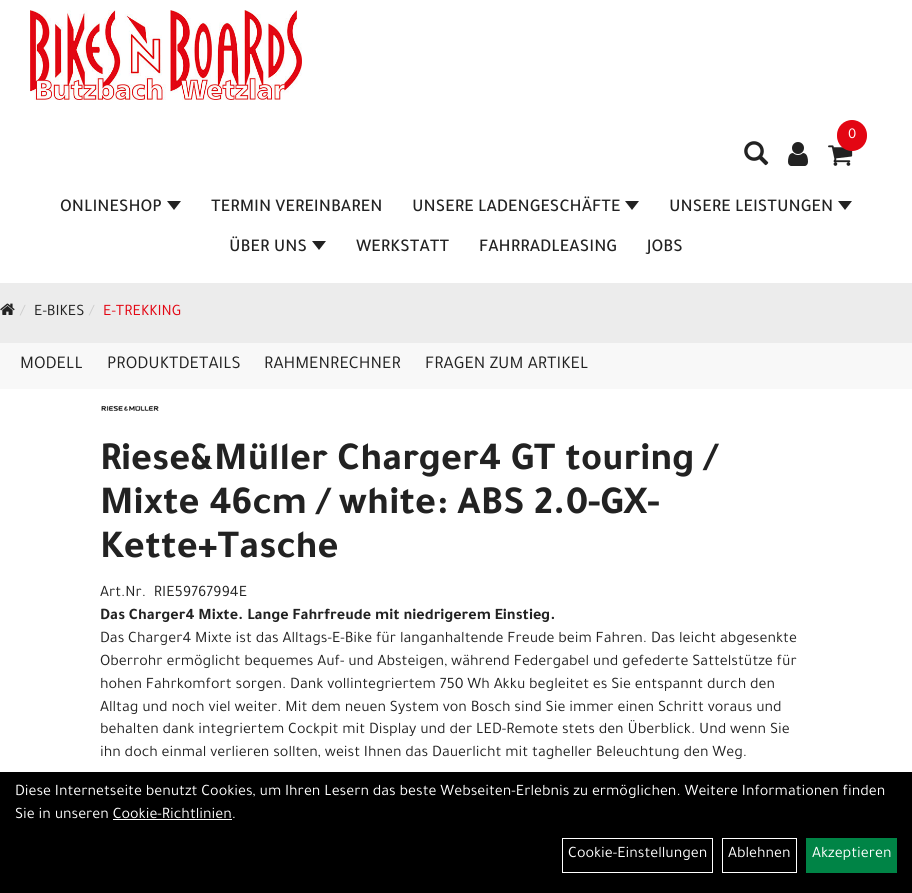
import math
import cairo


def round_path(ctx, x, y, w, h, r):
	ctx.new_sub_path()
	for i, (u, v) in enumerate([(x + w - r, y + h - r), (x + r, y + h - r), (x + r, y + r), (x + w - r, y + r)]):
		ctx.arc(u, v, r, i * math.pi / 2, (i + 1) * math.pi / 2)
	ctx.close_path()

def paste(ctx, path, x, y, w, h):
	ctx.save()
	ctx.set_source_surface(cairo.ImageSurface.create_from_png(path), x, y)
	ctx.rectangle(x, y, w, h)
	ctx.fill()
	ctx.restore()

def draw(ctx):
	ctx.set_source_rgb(1, 1, 1)
	ctx.paint()
	paste(ctx, 'media/1.png', 30, 10, 272, 90)
	paste(ctx, 'media/2.png', 828, 145, 25, 21)
	ctx.set_source_rgb(0.89, 0.027, 0.075)
	round_path(ctx, 837, 120, 30, 31, 15)
	ctx.fill()
	ctx.select_font_face('Tajawal')
	ctx.set_font_size(15)
	ctx.set_source_rgb(1, 1, 1)
	ctx.move_to(848, 138)
	ctx.show_text('0')
	paste(ctx, 'media/3.png', 744, 141, 25, 25)
	paste(ctx, 'media/4.png', 788, 142, 20, 24)
	ctx.select_font_face('Tajawal Medium')
	ctx.set_font_size(18)
	ctx.set_source_rgb(0.133, 0.133, 0.133)
	ctx.move_to(60, 211)
	ctx.show_text('ONLINESHOP')
	ctx.new_path()
	ctx.move_to(167, 201)
	ctx.line_to(181, 201)
	ctx.line_to(174, 210)
	ctx.close_path()
	ctx.fill()
	ctx.move_to(211, 211)
	ctx.show_text('TERMIN VEREINBAREN')
	ctx.move_to(412, 211)
	ctx.show_text('UNSERE LADENGESCHÄFTE')
	ctx.new_path()
	ctx.move_to(625, 201)
	ctx.line_to(639, 201)
	ctx.line_to(632, 210)
	ctx.close_path()
	ctx.fill()
	ctx.move_to(669, 211)
	ctx.show_text('UNSERE LEISTUNGEN')
	ctx.new_path()
	ctx.move_to(838, 201)
	ctx.line_to(852, 201)
	ctx.line_to(845, 210)
	ctx.close_path()
	ctx.fill()
	ctx.move_to(229, 251)
	ctx.show_text('ÜBER UNS')
	ctx.new_path()
	ctx.move_to(312, 241)
	ctx.line_to(326, 241)
	ctx.line_to(319, 250)
	ctx.close_path()
	ctx.fill()
	for x, y, s in [
		(356, 251, 'WERKSTATT'),
		(479, 251, 'FAHRRADLEASING'),
		(647, 251, 'JOBS'),
	]:
		ctx.move_to(x, y)
		ctx.show_text(s)
	ctx.set_source_rgb(0.925, 0.925, 0.925)
	ctx.rectangle(0, 283, 912, 60)
	ctx.fill()
	paste(ctx, 'media/5.png', 0, 303, 15, 12)
	ctx.select_font_face('Tajawal')
	ctx.set_font_size(16)
	ctx.set_source_rgb(0.8, 0.8, 0.8)
	ctx.move_to(20, 315)
	ctx.show_text('/')
	ctx.set_source_rgb(0.133, 0.133, 0.133)
	ctx.move_to(34, 315)
	ctx.show_text('E-BIKES')
	ctx.set_source_rgb(0.8, 0.8, 0.8)
	ctx.move_to(89, 315)
	ctx.show_text('/')
	ctx.set_source_rgb(0.89, 0.027, 0.075)
	ctx.move_to(103, 315)
	ctx.show_text('E-TREKKING')
	ctx.set_source_rgb(0.969, 0.969, 0.969)
	ctx.rectangle(0, 343, 912, 46)
	ctx.fill()
	ctx.set_font_size(18)
	ctx.set_source_rgb(0.133, 0.133, 0.133)
	for x, y, s in [
		(20, 368, 'MODELL'),
		(107, 368, 'PRODUKTDETAILS'),
		(264, 368, 'RAHMENRECHNER'),
		(425, 368, 'FRAGEN ZUM ARTIKEL'),
	]:
		ctx.move_to(x, y)
		ctx.show_text(s)
	paste(ctx, 'media/6.png', 101, 405, 58, 6)
	ctx.select_font_face('Tajawal', cairo.FONT_SLANT_NORMAL, cairo.FONT_WEIGHT_BOLD)
	ctx.set_font_size(40)
	for x, y, s in [
		(100, 469, 'Riese&Müller Charger4 GT touring /'),
		(100, 513, 'Mixte 46cm / white: ABS 2.0-GX-'),
		(100, 557, 'Kette+Tasche'),
	]:
		ctx.move_to(x, y)
		ctx.show_text(s)
	ctx.select_font_face('Tajawal')
	ctx.set_font_size(16)
	ctx.move_to(100, 596)
	ctx.show_text('Art.Nr.  RIE59767994E')
	ctx.select_font_face('Tajawal', cairo.FONT_SLANT_NORMAL, cairo.FONT_WEIGHT_BOLD)
	ctx.move_to(100, 619)
	ctx.show_text('Das Charger4 Mixte. Lange Fahrfreude mit niedrigerem Einstieg.')
	ctx.select_font_face('Tajawal')
	for x, y, s in [
		(100, 642, 'Das Charger4 Mixte ist das Alltags-E-Bike für langanhaltende Freude beim Fahren. Das leicht abgesenkte'),
		(100, 665, 'Oberrohr ermöglicht bequemes Auf- und Absteigen, während Federgabel und gefederte Sattelstütze für'),
		(100, 688, 'hohen Fahrkomfort sorgen. Dank vollintegriertem 750 Wh Akku begleitet es Sie entspannt durch den'),
		(100, 711, 'Alltag und noch viel weiter. Mit dem neuen System von Bosch sind Sie immer einen Schritt voraus und'),
		(100, 733, 'behalten dank integriertem Cockpit mit Display und der LED-Remote stets den Überblick. Und wenn Sie'),
		(100, 756, 'ihn doch einmal verlieren sollten, weist Ihnen das Dauerlicht mit tagheller Beleuchtung den Weg.'),
	]:
		ctx.move_to(x, y)
		ctx.show_text(s)
	ctx.set_source_rgb(0, 0, 0)
	ctx.rectangle(0, 772, 912, 121)
	ctx.fill()
	ctx.set_source_rgb(1, 1, 1)
	ctx.move_to(15, 795)
	ctx.show_text('Diese Internetseite benutzt Cookies, um Ihren Lesern das beste Webseiten-Erlebnis zu ermöglichen. Weitere Informationen finden')
	ctx.move_to(15, 818)
	ctx.show_text('Sie in unseren Cookie-Richtlinien.')
	ctx.rectangle(113, 819, 119, 1)
	ctx.fill()
	ctx.rectangle(562.5, 838.5, 150, 34)
	ctx.set_line_width(1)
	ctx.stroke()
	ctx.move_to(568, 857)
	ctx.show_text('Cookie-Einstellungen')
	ctx.rectangle(722.5, 838.5, 74, 34)
	ctx.stroke()
	ctx.move_to(728, 857)
	ctx.show_text('Ablehnen')
	ctx.set_source_rgb(0, 0.518, 0.275)
	ctx.rectangle(806, 838, 91, 35)
	ctx.fill()
	ctx.set_source_rgb(1, 1, 1)
	ctx.move_to(812, 857)
	ctx.show_text('Akzeptieren')


surface = cairo.ImageSurface(cairo.FORMAT_RGB24, 912, 893)
ctx = cairo.Context(surface)
options = cairo.FontOptions()
options.set_hint_metrics(cairo.HINT_METRICS_OFF)
options.set_hint_style(cairo.HINT_STYLE_NONE)
ctx.set_font_options(options)
ctx.set_miter_limit(4)
draw(ctx)
surface.write_to_png('image.png')
